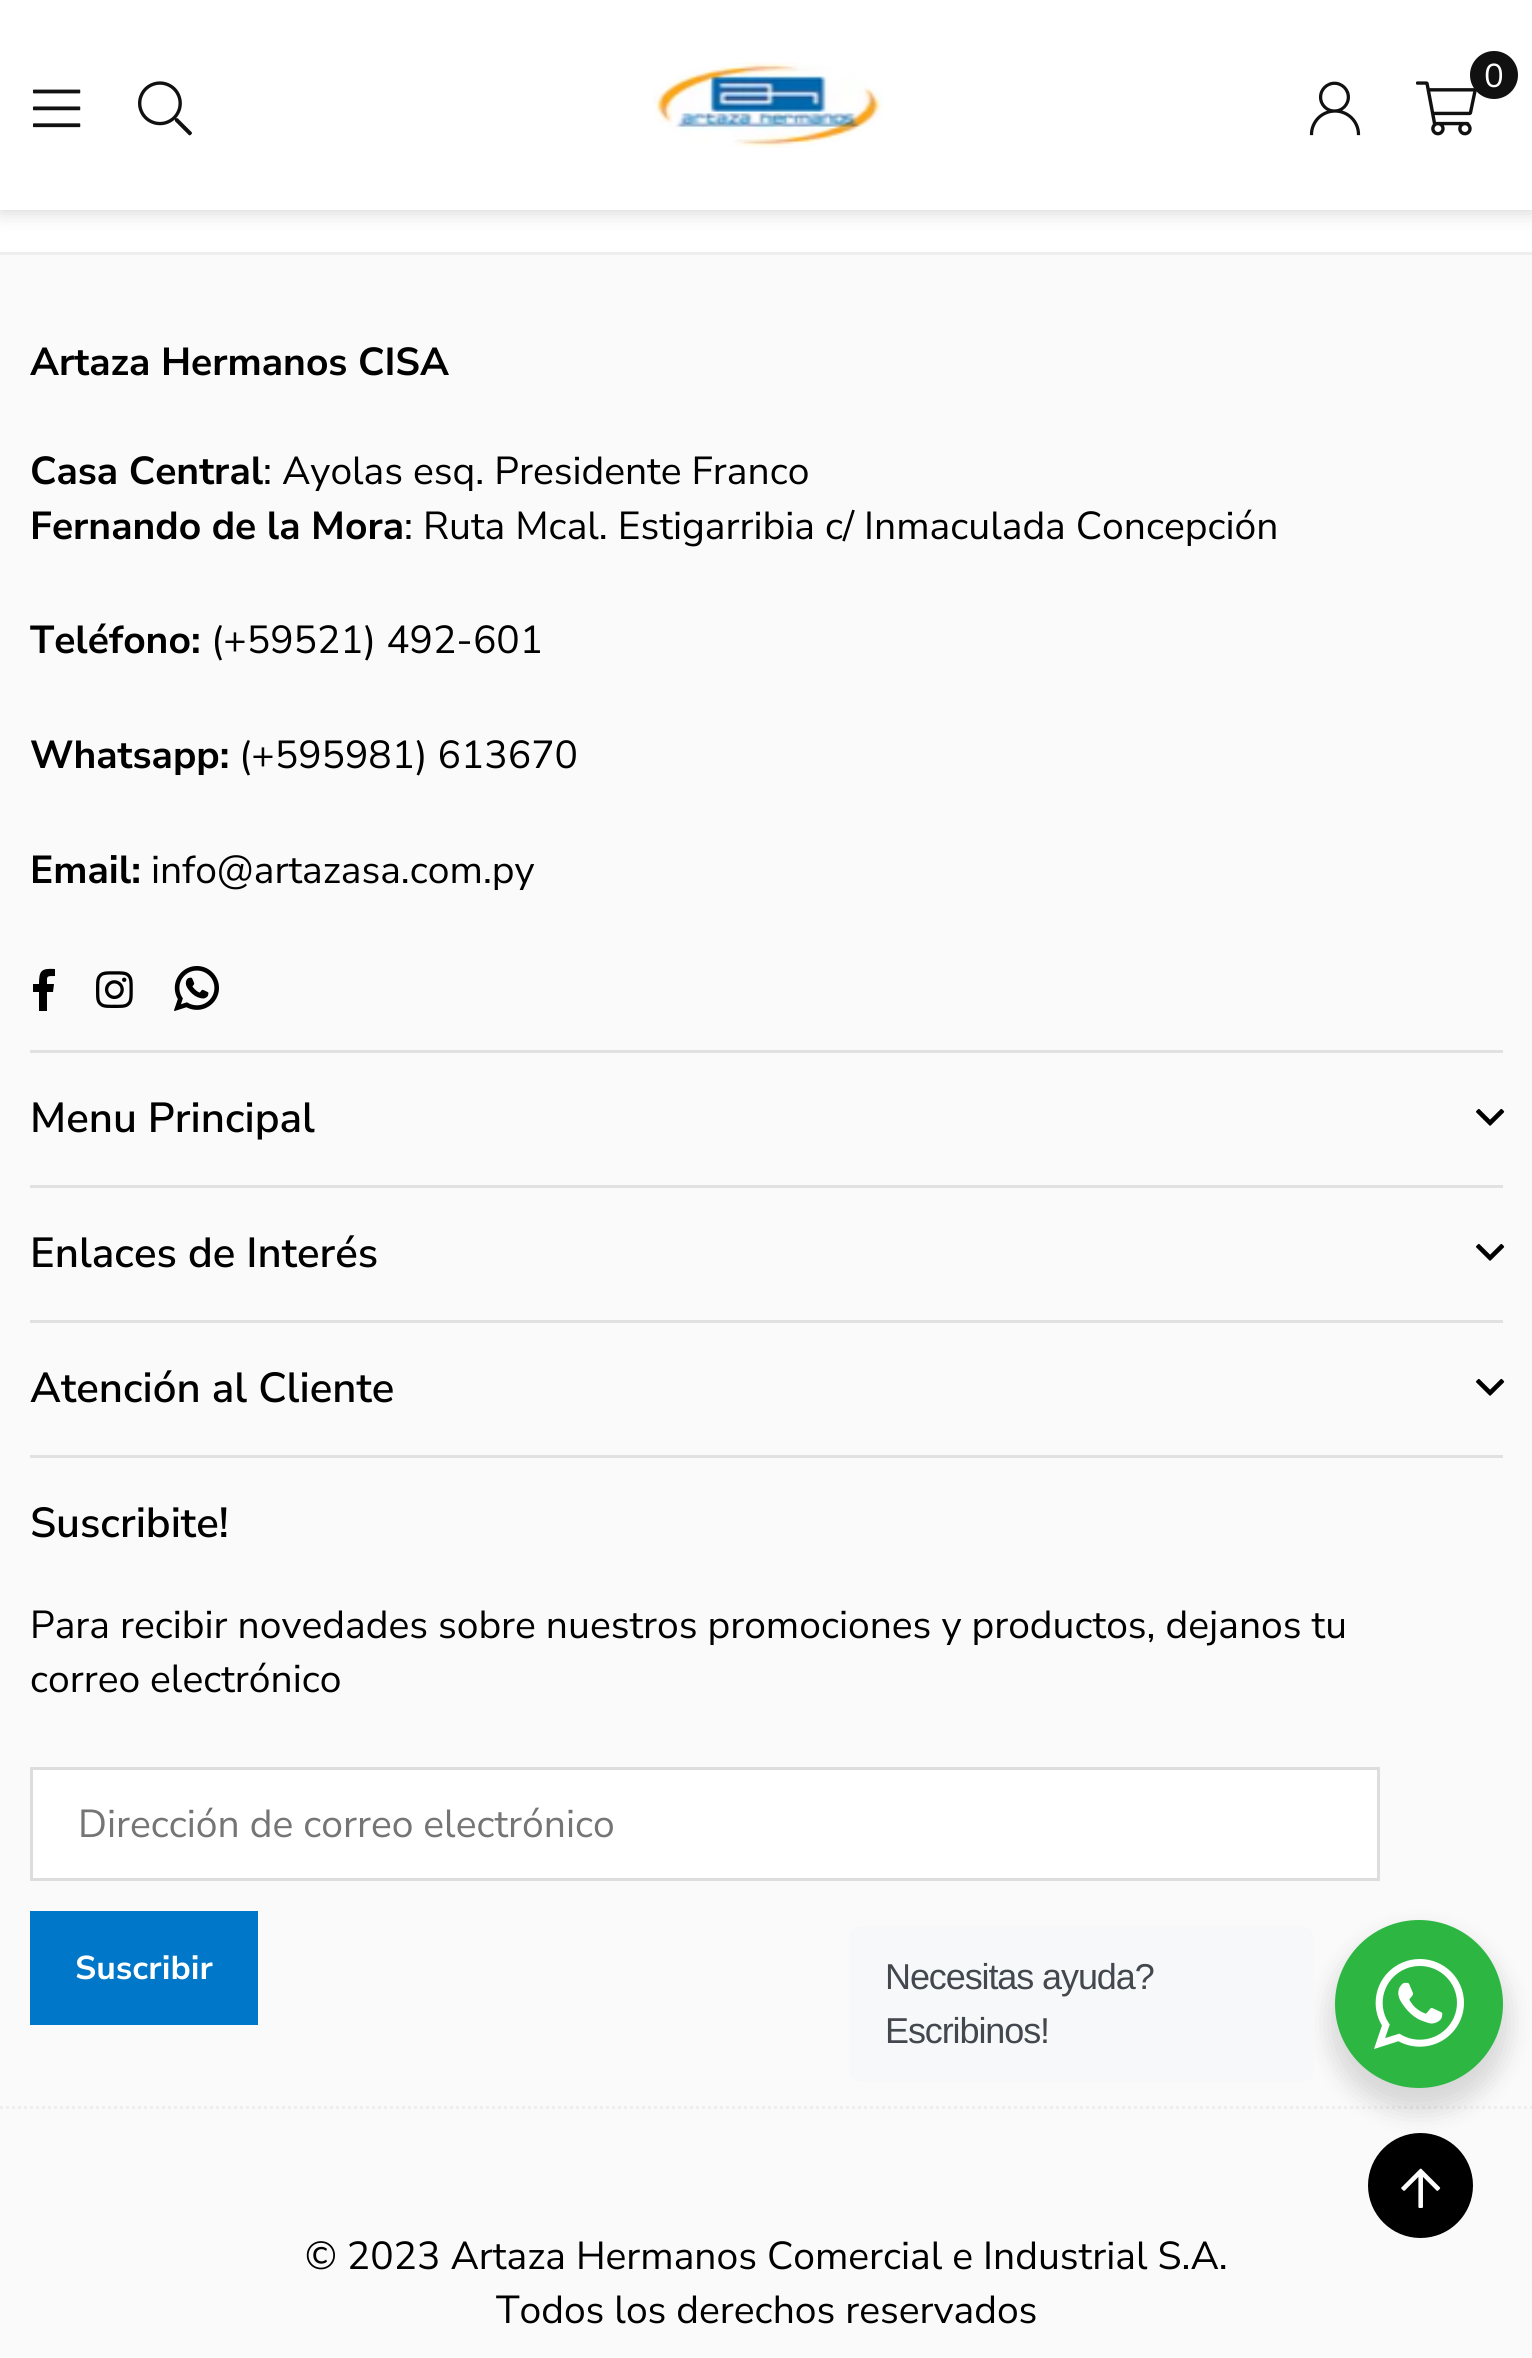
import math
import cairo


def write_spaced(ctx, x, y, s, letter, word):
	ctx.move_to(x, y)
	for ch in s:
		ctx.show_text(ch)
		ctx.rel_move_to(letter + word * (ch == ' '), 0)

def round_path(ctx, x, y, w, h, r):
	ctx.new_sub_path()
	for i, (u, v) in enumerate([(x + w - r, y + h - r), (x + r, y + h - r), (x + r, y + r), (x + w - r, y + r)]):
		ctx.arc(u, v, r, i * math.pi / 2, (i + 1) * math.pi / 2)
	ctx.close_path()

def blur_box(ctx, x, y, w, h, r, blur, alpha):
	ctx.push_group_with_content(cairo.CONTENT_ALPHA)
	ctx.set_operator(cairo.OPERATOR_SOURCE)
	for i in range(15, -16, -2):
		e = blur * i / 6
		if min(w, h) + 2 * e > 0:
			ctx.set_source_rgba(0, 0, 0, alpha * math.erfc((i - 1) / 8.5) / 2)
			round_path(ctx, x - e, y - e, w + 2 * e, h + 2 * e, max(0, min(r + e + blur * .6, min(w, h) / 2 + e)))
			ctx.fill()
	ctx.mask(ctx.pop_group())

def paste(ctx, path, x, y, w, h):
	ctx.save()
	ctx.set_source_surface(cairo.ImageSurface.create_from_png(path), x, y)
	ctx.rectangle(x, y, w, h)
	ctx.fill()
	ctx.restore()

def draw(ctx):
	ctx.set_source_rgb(1, 1, 1)
	ctx.paint()
	ctx.set_source_rgb(0, 0, 0)
	blur_box(ctx, 0, 0, 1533, 210, 0, 10.5, 0.2)
	ctx.set_source_rgb(1, 1, 1)
	ctx.rectangle(0, 0, 1532, 210)
	ctx.fill()
	paste(ctx, 'media/1.png', 653, 62, 231, 86)
	paste(ctx, 'media/2.png', 1416, 81, 61, 55)
	ctx.set_source_rgb(0.067, 0.067, 0.067)
	ctx.arc(1494, 75, 24, 0, 2 * math.pi)
	ctx.fill()
	ctx.select_font_face('Nunito Sans')
	ctx.set_font_size(33)
	ctx.set_source_rgb(1, 1, 1)
	ctx.move_to(1484, 87)
	ctx.show_text('0')
	paste(ctx, 'media/3.png', 1309, 81, 52, 55)
	paste(ctx, 'media/4.png', 33, 89, 48, 39)
	paste(ctx, 'media/5.png', 138, 81, 54, 55)
	ctx.set_source_rgb(0.98, 0.98, 0.98)
	ctx.rectangle(0, 255, 1532, 2103)
	ctx.fill()
	ctx.set_source_rgb(0.933, 0.933, 0.933)
	ctx.rectangle(0, 252, 1532, 3)
	ctx.fill()
	ctx.select_font_face('Nunito Sans', cairo.FONT_SLANT_NORMAL, cairo.FONT_WEIGHT_BOLD)
	ctx.set_font_size(39)
	ctx.set_source_rgb(0, 0, 0)
	ctx.move_to(30, 375)
	ctx.show_text('Artaza Hermanos CISA')
	ctx.move_to(30, 484)
	ctx.show_text('Casa Central')
	ctx.select_font_face('Nunito Sans')
	ctx.move_to(263, 484)
	ctx.show_text(': Ayolas esq. Presidente Franco')
	ctx.select_font_face('Nunito Sans', cairo.FONT_SLANT_NORMAL, cairo.FONT_WEIGHT_BOLD)
	ctx.move_to(30, 539)
	ctx.show_text('Fernando de la Mora')
	ctx.select_font_face('Nunito Sans')
	ctx.move_to(404, 539)
	ctx.show_text(': Ruta Mcal. Estigarribia c/ Inmaculada Concepción')
	ctx.select_font_face('Nunito Sans', cairo.FONT_SLANT_NORMAL, cairo.FONT_WEIGHT_BOLD)
	ctx.move_to(30, 653)
	ctx.show_text('Teléfono:')
	ctx.select_font_face('Nunito Sans')
	ctx.move_to(211, 653)
	ctx.show_text('(+59521) 492-601')
	ctx.select_font_face('Nunito Sans', cairo.FONT_SLANT_NORMAL, cairo.FONT_WEIGHT_BOLD)
	ctx.move_to(30, 768)
	ctx.show_text('Whatsapp:')
	ctx.select_font_face('Nunito Sans')
	ctx.move_to(239, 768)
	ctx.show_text('(+595981) 613670')
	ctx.select_font_face('Nunito Sans', cairo.FONT_SLANT_NORMAL, cairo.FONT_WEIGHT_BOLD)
	ctx.move_to(30, 883)
	ctx.show_text('Email:')
	ctx.select_font_face('Nunito Sans')
	ctx.move_to(151, 883)
	ctx.show_text('info@artazasa.com.py')
	ctx.new_path()
	ctx.move_to(39, 1011)
	ctx.line_to(39, 992)
	ctx.line_to(33, 992)
	ctx.line_to(33, 984)
	ctx.line_to(39, 984)
	ctx.curve_to(39, 971, 41, 968, 55, 969)
	ctx.line_to(55, 976)
	ctx.curve_to(46, 976, 47, 976, 47, 984)
	ctx.line_to(54, 984)
	ctx.line_to(53, 992)
	ctx.line_to(47, 992)
	ctx.line_to(47, 1011)
	ctx.close_path()
	ctx.fill()
	paste(ctx, 'media/6.png', 96, 971, 37, 37)
	paste(ctx, 'media/7.png', 174, 966, 45, 45)
	ctx.set_source_rgb(0.882, 0.882, 0.882)
	ctx.rectangle(30, 1050, 1473, 3)
	ctx.fill()
	ctx.select_font_face('Nunito Sans SemiBold')
	ctx.set_font_size(42)
	ctx.set_source_rgb(0, 0, 0)
	ctx.move_to(30, 1132)
	ctx.show_text('Menu Principal')
	paste(ctx, 'media/8.png', 1476, 1108, 29, 18)
	ctx.set_source_rgb(0.882, 0.882, 0.882)
	ctx.rectangle(30, 1185, 1473, 3)
	ctx.fill()
	ctx.set_source_rgb(0, 0, 0)
	ctx.move_to(30, 1267)
	ctx.show_text('Enlaces de Interés')
	paste(ctx, 'media/8.png', 1476, 1243, 29, 18)
	ctx.set_source_rgb(0.882, 0.882, 0.882)
	ctx.rectangle(30, 1320, 1473, 3)
	ctx.fill()
	ctx.set_source_rgb(0, 0, 0)
	ctx.move_to(30, 1402)
	ctx.show_text('Atención al Cliente')
	paste(ctx, 'media/8.png', 1476, 1378, 29, 18)
	ctx.set_source_rgb(0.882, 0.882, 0.882)
	ctx.rectangle(30, 1455, 1473, 3)
	ctx.fill()
	ctx.set_source_rgb(0, 0, 0)
	ctx.move_to(30, 1537)
	ctx.show_text('Suscribite!')
	ctx.select_font_face('Nunito Sans')
	ctx.set_font_size(39)
	ctx.move_to(30, 1638)
	ctx.show_text('Para recibir novedades sobre nuestros promociones y productos, dejanos tu')
	ctx.move_to(30, 1692)
	ctx.show_text('correo electrónico')
	ctx.set_source_rgb(1, 1, 1)
	ctx.rectangle(31.5, 1768.5, 1347, 111)
	ctx.fill_preserve()
	ctx.set_source_rgb(0.867, 0.867, 0.867)
	ctx.set_line_width(3)
	ctx.stroke()
	ctx.set_source_rgb(0.459, 0.459, 0.459)
	ctx.move_to(78, 1837)
	ctx.show_text('Dirección de correo electrónico')
	ctx.set_source_rgb(0, 0.467, 0.784)
	ctx.rectangle(30, 1911, 228, 114)
	ctx.fill()
	ctx.select_font_face('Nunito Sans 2', cairo.FONT_SLANT_NORMAL, cairo.FONT_WEIGHT_BOLD)
	ctx.set_font_size(33)
	ctx.set_source_rgb(1, 1, 1)
	ctx.move_to(75, 1979)
	ctx.show_text('Suscribir')
	ctx.new_path()
	ctx.move_to(0, 2107.5)
	ctx.line_to(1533, 2107.5)
	ctx.set_source_rgb(0.933, 0.933, 0.933)
	ctx.set_dash([3, 3])
	ctx.stroke()
	ctx.select_font_face('Nunito Sans')
	ctx.set_font_size(39)
	ctx.set_source_rgb(0, 0, 0)
	ctx.move_to(305, 2269)
	ctx.show_text('© 2023 Artaza Hermanos Comercial e Industrial S.A.')
	ctx.move_to(496, 2323)
	ctx.show_text('Todos los derechos reservados')
	ctx.new_path()
	ctx.arc(1420.5, 2185.5, 52.5, 0, 2 * math.pi)
	ctx.fill()
	ctx.set_source_rgb(0, 0, 0)
	blur_box(ctx, 1329, 1932, 180, 180, 90, 12, 0.14)
	ctx.set_source_rgb(0.961, 0.969, 0.976)
	round_path(ctx, 849, 1926, 465, 156, 12)
	ctx.fill()
	ctx.select_font_face('Liberation Sans')
	ctx.set_font_size(36)
	ctx.set_source_rgb(0.263, 0.278, 0.306)
	write_spaced(ctx, 885, 1989, 'Necesitas ayuda?', -1.1, 0)
	write_spaced(ctx, 885, 2043, 'Escribinos!', -1.1, 0)
	ctx.set_source_rgb(0.176, 0.718, 0.259)
	ctx.new_path()
	ctx.arc(1419, 2004, 84, 0, 2 * math.pi)
	ctx.fill()
	paste(ctx, 'media/9.png', 1374, 1959, 90, 90)
	paste(ctx, 'media/10.png', 1401, 2168, 40, 40)


surface = cairo.ImageSurface(cairo.FORMAT_RGB24, 1532, 2358)
ctx = cairo.Context(surface)
options = cairo.FontOptions()
options.set_hint_metrics(cairo.HINT_METRICS_OFF)
options.set_hint_style(cairo.HINT_STYLE_NONE)
ctx.set_font_options(options)
ctx.set_miter_limit(4)
draw(ctx)
surface.write_to_png('image.png')
